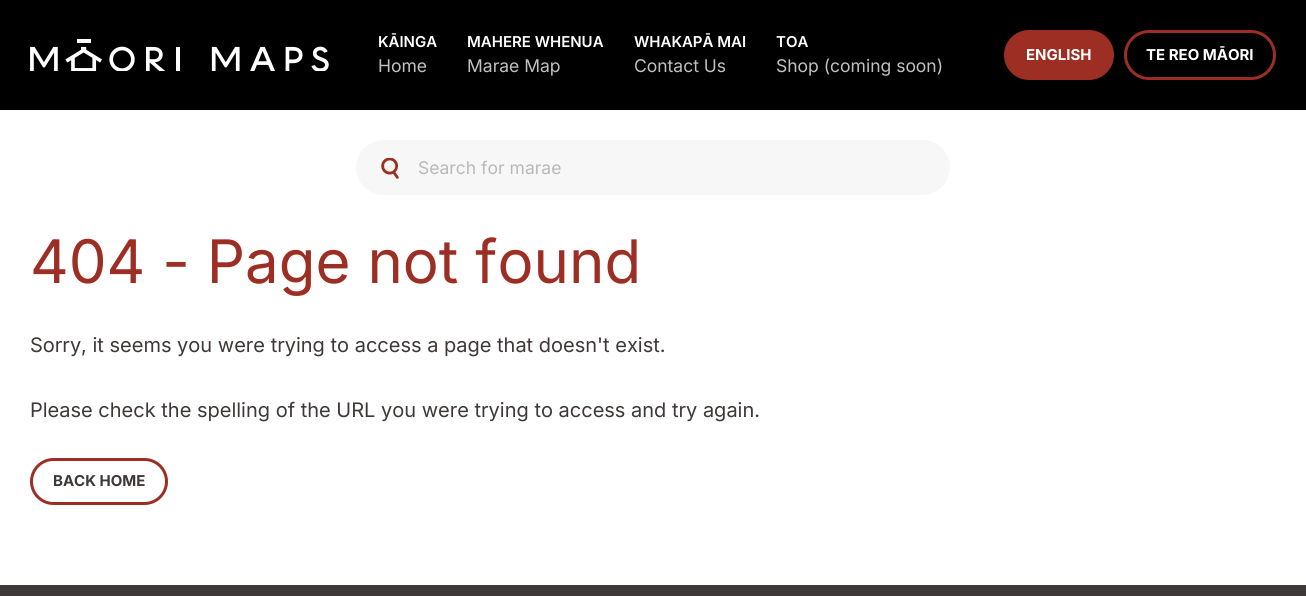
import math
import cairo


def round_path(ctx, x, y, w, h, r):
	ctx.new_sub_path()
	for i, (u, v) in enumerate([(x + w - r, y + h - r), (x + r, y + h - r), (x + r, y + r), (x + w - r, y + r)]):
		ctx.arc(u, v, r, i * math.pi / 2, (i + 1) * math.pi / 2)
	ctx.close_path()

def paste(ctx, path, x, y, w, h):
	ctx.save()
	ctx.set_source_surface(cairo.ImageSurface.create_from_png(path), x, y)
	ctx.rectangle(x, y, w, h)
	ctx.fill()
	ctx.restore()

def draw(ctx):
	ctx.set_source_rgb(1, 1, 1)
	ctx.paint()
	ctx.set_source_rgb(0, 0, 0)
	ctx.rectangle(0, 0, 1306, 110)
	ctx.fill()
	paste(ctx, 'media/1.png', 30, 39, 299, 32)
	ctx.select_font_face('Inter SemiBold')
	ctx.set_font_size(15)
	ctx.set_source_rgb(1, 1, 1)
	ctx.move_to(378, 47)
	ctx.show_text('KĀINGA')
	ctx.select_font_face('Inter')
	ctx.set_font_size(17.5)
	ctx.set_source_rgb(0.757, 0.757, 0.757)
	ctx.move_to(378, 72)
	ctx.show_text('Home')
	ctx.select_font_face('Inter SemiBold')
	ctx.set_font_size(15)
	ctx.set_source_rgb(1, 1, 1)
	ctx.move_to(467, 47)
	ctx.show_text('MAHERE WHENUA')
	ctx.select_font_face('Inter')
	ctx.set_font_size(17.5)
	ctx.set_source_rgb(0.757, 0.757, 0.757)
	ctx.move_to(467, 72)
	ctx.show_text('Marae Map')
	ctx.select_font_face('Inter SemiBold')
	ctx.set_font_size(15)
	ctx.set_source_rgb(1, 1, 1)
	ctx.move_to(634, 47)
	ctx.show_text('WHAKAPĀ MAI')
	ctx.select_font_face('Inter')
	ctx.set_font_size(17.5)
	ctx.set_source_rgb(0.757, 0.757, 0.757)
	ctx.move_to(634, 72)
	ctx.show_text('Contact Us')
	ctx.select_font_face('Inter SemiBold')
	ctx.set_font_size(15)
	ctx.set_source_rgb(1, 1, 1)
	ctx.move_to(776, 47)
	ctx.show_text('TOA')
	ctx.select_font_face('Inter')
	ctx.set_font_size(17.5)
	ctx.set_source_rgb(0.757, 0.757, 0.757)
	ctx.move_to(776, 72)
	ctx.show_text('Shop (coming soon)')
	ctx.set_source_rgb(0.616, 0.18, 0.141)
	round_path(ctx, 1005.5, 31.5, 107, 47, 23.5)
	ctx.fill_preserve()
	ctx.set_line_width(3)
	ctx.stroke()
	ctx.select_font_face('Inter', cairo.FONT_SLANT_NORMAL, cairo.FONT_WEIGHT_BOLD)
	ctx.set_font_size(15)
	ctx.set_source_rgb(1, 1, 1)
	ctx.move_to(1026, 60)
	ctx.show_text('ENGLISH')
	round_path(ctx, 1125.5, 31.5, 149, 47, 23.5)
	ctx.set_source_rgb(0.616, 0.18, 0.141)
	ctx.stroke()
	ctx.set_source_rgb(1, 1, 1)
	ctx.move_to(1146, 60)
	ctx.show_text('TE REO MĀORI')
	ctx.set_source_rgb(0.965, 0.965, 0.965)
	round_path(ctx, 356, 140, 594, 55, 27.5)
	ctx.fill()
	paste(ctx, 'media/2.png', 381, 158, 18, 21)
	ctx.select_font_face('Inter')
	ctx.set_font_size(17.5)
	ctx.set_source_rgb(0.725, 0.725, 0.725)
	ctx.move_to(418, 174)
	ctx.show_text('Search for marae')
	ctx.set_font_size(60)
	ctx.set_source_rgb(0.616, 0.18, 0.141)
	ctx.move_to(30, 283)
	ctx.show_text('404 - Page not found')
	ctx.set_font_size(20)
	ctx.set_source_rgb(0.247, 0.22, 0.22)
	ctx.move_to(30, 352)
	ctx.show_text('Sorry, it seems you were trying to access a page that doesn\'t exist.')
	ctx.move_to(30, 417)
	ctx.show_text('Please check the spelling of the URL you were trying to access and try again.')
	round_path(ctx, 31.5, 459.5, 135, 44, 22)
	ctx.set_source_rgb(0.616, 0.18, 0.141)
	ctx.stroke()
	ctx.select_font_face('Inter', cairo.FONT_SLANT_NORMAL, cairo.FONT_WEIGHT_BOLD)
	ctx.set_font_size(15)
	ctx.set_source_rgb(0.247, 0.22, 0.22)
	ctx.move_to(53, 486)
	ctx.show_text('BACK HOME')
	ctx.rectangle(0, 585, 1306, 11)
	ctx.fill()


surface = cairo.ImageSurface(cairo.FORMAT_RGB24, 1306, 596)
ctx = cairo.Context(surface)
options = cairo.FontOptions()
options.set_hint_metrics(cairo.HINT_METRICS_OFF)
options.set_hint_style(cairo.HINT_STYLE_NONE)
ctx.set_font_options(options)
ctx.set_miter_limit(4)
draw(ctx)
surface.write_to_png('image.png')
